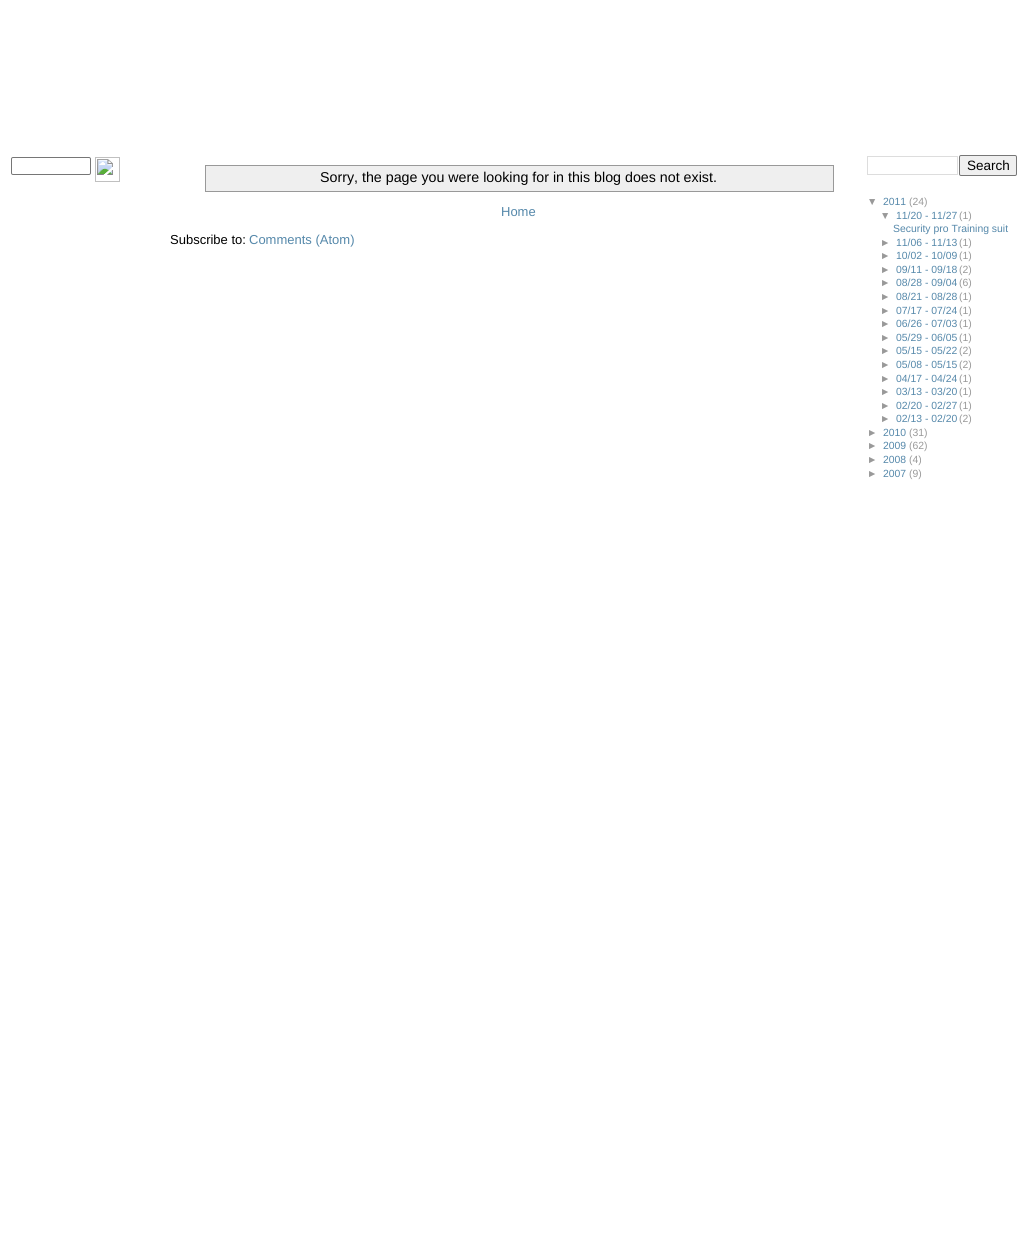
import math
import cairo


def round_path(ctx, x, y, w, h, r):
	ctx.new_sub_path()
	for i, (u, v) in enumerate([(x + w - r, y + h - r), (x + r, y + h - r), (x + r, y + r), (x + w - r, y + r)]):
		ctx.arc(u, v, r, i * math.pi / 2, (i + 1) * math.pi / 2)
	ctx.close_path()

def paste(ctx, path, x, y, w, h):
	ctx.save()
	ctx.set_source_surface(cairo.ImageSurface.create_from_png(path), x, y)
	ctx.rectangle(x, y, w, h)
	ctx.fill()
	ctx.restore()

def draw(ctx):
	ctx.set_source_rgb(1, 1, 1)
	ctx.paint()
	round_path(ctx, 11.5, 157.5, 79, 17, 1.5)
	ctx.set_source_rgb(0.463, 0.463, 0.463)
	ctx.set_line_width(1)
	ctx.stroke()
	paste(ctx, 'media/1.png', 95, 157, 25, 25)
	ctx.rectangle(205.5, 165.5, 628, 26)
	ctx.set_source_rgb(0.6, 0.6, 0.6)
	ctx.stroke()
	ctx.set_source_rgb(0.937, 0.937, 0.937)
	ctx.rectangle(206, 166, 627, 25)
	ctx.fill()
	ctx.select_font_face('Liberation Sans')
	ctx.set_font_size(14.25)
	ctx.set_source_rgb(0, 0, 0)
	ctx.move_to(320, 182)
	ctx.show_text('Sorry, the page you were looking for in this blog does not exist.')
	ctx.set_font_size(13)
	ctx.set_source_rgb(0.333, 0.533, 0.667)
	ctx.move_to(501, 216)
	ctx.show_text('Home')
	ctx.set_source_rgb(0, 0, 0)
	ctx.move_to(170, 244)
	ctx.show_text('Subscribe to:')
	ctx.set_source_rgb(0.333, 0.533, 0.667)
	ctx.move_to(249, 244)
	ctx.show_text('Comments (Atom)')
	ctx.rectangle(867.5, 156.5, 90, 18)
	ctx.set_source_rgb(0.867, 0.867, 0.867)
	ctx.stroke()
	ctx.set_source_rgb(0.937, 0.937, 0.937)
	round_path(ctx, 959.5, 155.5, 57, 20, 1.5)
	ctx.fill_preserve()
	ctx.set_source_rgb(0.463, 0.463, 0.463)
	ctx.stroke()
	ctx.set_font_size(13.5)
	ctx.set_source_rgb(0, 0, 0)
	ctx.move_to(967, 170)
	ctx.show_text('Search')
	ctx.set_font_size(10.4)
	ctx.set_source_rgb(0.6, 0.6, 0.6)
	ctx.move_to(867, 205)
	ctx.show_text('▼')
	ctx.set_source_rgb(0.333, 0.533, 0.667)
	ctx.move_to(883, 205)
	ctx.show_text('2011')
	ctx.set_source_rgb(0.6, 0.6, 0.6)
	ctx.move_to(909, 205)
	ctx.show_text('(24)')
	ctx.move_to(880, 219)
	ctx.show_text('▼')
	ctx.set_source_rgb(0.333, 0.533, 0.667)
	ctx.move_to(896, 219)
	ctx.show_text('11/20 - 11/27')
	ctx.set_source_rgb(0.6, 0.6, 0.6)
	ctx.move_to(959, 219)
	ctx.show_text('(1)')
	ctx.set_source_rgb(0.333, 0.533, 0.667)
	ctx.move_to(893, 232)
	ctx.show_text('Security pro Training suit')
	ctx.set_source_rgb(0.6, 0.6, 0.6)
	ctx.move_to(880, 246)
	ctx.show_text('►')
	ctx.set_source_rgb(0.333, 0.533, 0.667)
	ctx.move_to(896, 246)
	ctx.show_text('11/06 - 11/13')
	ctx.set_source_rgb(0.6, 0.6, 0.6)
	ctx.move_to(959, 246)
	ctx.show_text('(1)')
	ctx.move_to(880, 259)
	ctx.show_text('►')
	ctx.set_source_rgb(0.333, 0.533, 0.667)
	ctx.move_to(896, 259)
	ctx.show_text('10/02 - 10/09')
	ctx.set_source_rgb(0.6, 0.6, 0.6)
	ctx.move_to(959, 259)
	ctx.show_text('(1)')
	ctx.move_to(880, 273)
	ctx.show_text('►')
	ctx.set_source_rgb(0.333, 0.533, 0.667)
	ctx.move_to(896, 273)
	ctx.show_text('09/11 - 09/18')
	ctx.set_source_rgb(0.6, 0.6, 0.6)
	ctx.move_to(959, 273)
	ctx.show_text('(2)')
	ctx.move_to(880, 286)
	ctx.show_text('►')
	ctx.set_source_rgb(0.333, 0.533, 0.667)
	ctx.move_to(896, 286)
	ctx.show_text('08/28 - 09/04')
	ctx.set_source_rgb(0.6, 0.6, 0.6)
	ctx.move_to(959, 286)
	ctx.show_text('(6)')
	ctx.move_to(880, 300)
	ctx.show_text('►')
	ctx.set_source_rgb(0.333, 0.533, 0.667)
	ctx.move_to(896, 300)
	ctx.show_text('08/21 - 08/28')
	ctx.set_source_rgb(0.6, 0.6, 0.6)
	ctx.move_to(959, 300)
	ctx.show_text('(1)')
	ctx.move_to(880, 314)
	ctx.show_text('►')
	ctx.set_source_rgb(0.333, 0.533, 0.667)
	ctx.move_to(896, 314)
	ctx.show_text('07/17 - 07/24')
	ctx.set_source_rgb(0.6, 0.6, 0.6)
	ctx.move_to(959, 314)
	ctx.show_text('(1)')
	ctx.move_to(880, 327)
	ctx.show_text('►')
	ctx.set_source_rgb(0.333, 0.533, 0.667)
	ctx.move_to(896, 327)
	ctx.show_text('06/26 - 07/03')
	ctx.set_source_rgb(0.6, 0.6, 0.6)
	ctx.move_to(959, 327)
	ctx.show_text('(1)')
	ctx.move_to(880, 341)
	ctx.show_text('►')
	ctx.set_source_rgb(0.333, 0.533, 0.667)
	ctx.move_to(896, 341)
	ctx.show_text('05/29 - 06/05')
	ctx.set_source_rgb(0.6, 0.6, 0.6)
	ctx.move_to(959, 341)
	ctx.show_text('(1)')
	ctx.move_to(880, 354)
	ctx.show_text('►')
	ctx.set_source_rgb(0.333, 0.533, 0.667)
	ctx.move_to(896, 354)
	ctx.show_text('05/15 - 05/22')
	ctx.set_source_rgb(0.6, 0.6, 0.6)
	ctx.move_to(959, 354)
	ctx.show_text('(2)')
	ctx.move_to(880, 368)
	ctx.show_text('►')
	ctx.set_source_rgb(0.333, 0.533, 0.667)
	ctx.move_to(896, 368)
	ctx.show_text('05/08 - 05/15')
	ctx.set_source_rgb(0.6, 0.6, 0.6)
	ctx.move_to(959, 368)
	ctx.show_text('(2)')
	ctx.move_to(880, 382)
	ctx.show_text('►')
	ctx.set_source_rgb(0.333, 0.533, 0.667)
	ctx.move_to(896, 382)
	ctx.show_text('04/17 - 04/24')
	ctx.set_source_rgb(0.6, 0.6, 0.6)
	ctx.move_to(959, 382)
	ctx.show_text('(1)')
	ctx.move_to(880, 395)
	ctx.show_text('►')
	ctx.set_source_rgb(0.333, 0.533, 0.667)
	ctx.move_to(896, 395)
	ctx.show_text('03/13 - 03/20')
	ctx.set_source_rgb(0.6, 0.6, 0.6)
	ctx.move_to(959, 395)
	ctx.show_text('(1)')
	ctx.move_to(880, 409)
	ctx.show_text('►')
	ctx.set_source_rgb(0.333, 0.533, 0.667)
	ctx.move_to(896, 409)
	ctx.show_text('02/20 - 02/27')
	ctx.set_source_rgb(0.6, 0.6, 0.6)
	ctx.move_to(959, 409)
	ctx.show_text('(1)')
	ctx.move_to(880, 422)
	ctx.show_text('►')
	ctx.set_source_rgb(0.333, 0.533, 0.667)
	ctx.move_to(896, 422)
	ctx.show_text('02/13 - 02/20')
	ctx.set_source_rgb(0.6, 0.6, 0.6)
	ctx.move_to(959, 422)
	ctx.show_text('(2)')
	ctx.move_to(867, 436)
	ctx.show_text('►')
	ctx.set_source_rgb(0.333, 0.533, 0.667)
	ctx.move_to(883, 436)
	ctx.show_text('2010')
	ctx.set_source_rgb(0.6, 0.6, 0.6)
	ctx.move_to(909, 436)
	ctx.show_text('(31)')
	ctx.move_to(867, 449)
	ctx.show_text('►')
	ctx.set_source_rgb(0.333, 0.533, 0.667)
	ctx.move_to(883, 449)
	ctx.show_text('2009')
	ctx.set_source_rgb(0.6, 0.6, 0.6)
	ctx.move_to(909, 449)
	ctx.show_text('(62)')
	ctx.move_to(867, 463)
	ctx.show_text('►')
	ctx.set_source_rgb(0.333, 0.533, 0.667)
	ctx.move_to(883, 463)
	ctx.show_text('2008')
	ctx.set_source_rgb(0.6, 0.6, 0.6)
	ctx.move_to(909, 463)
	ctx.show_text('(4)')
	ctx.move_to(867, 477)
	ctx.show_text('►')
	ctx.set_source_rgb(0.333, 0.533, 0.667)
	ctx.move_to(883, 477)
	ctx.show_text('2007')
	ctx.set_source_rgb(0.6, 0.6, 0.6)
	ctx.move_to(909, 477)
	ctx.show_text('(9)')


surface = cairo.ImageSurface(cairo.FORMAT_RGB24, 1017, 1233)
ctx = cairo.Context(surface)
options = cairo.FontOptions()
options.set_hint_metrics(cairo.HINT_METRICS_OFF)
options.set_hint_style(cairo.HINT_STYLE_NONE)
ctx.set_font_options(options)
ctx.set_miter_limit(4)
draw(ctx)
surface.write_to_png('image.png')
